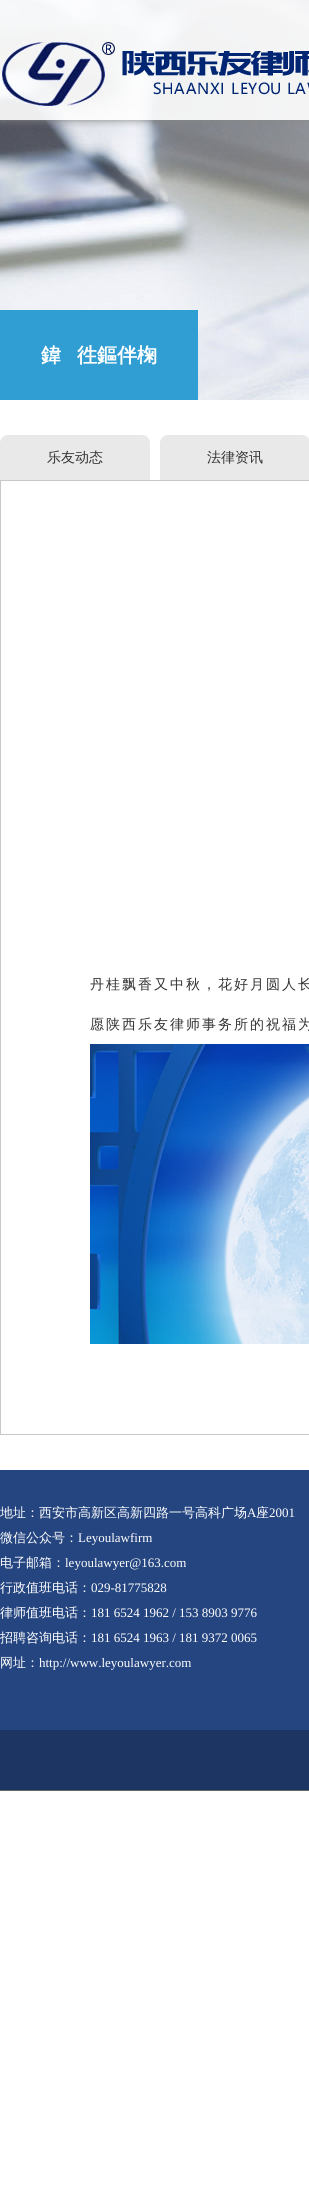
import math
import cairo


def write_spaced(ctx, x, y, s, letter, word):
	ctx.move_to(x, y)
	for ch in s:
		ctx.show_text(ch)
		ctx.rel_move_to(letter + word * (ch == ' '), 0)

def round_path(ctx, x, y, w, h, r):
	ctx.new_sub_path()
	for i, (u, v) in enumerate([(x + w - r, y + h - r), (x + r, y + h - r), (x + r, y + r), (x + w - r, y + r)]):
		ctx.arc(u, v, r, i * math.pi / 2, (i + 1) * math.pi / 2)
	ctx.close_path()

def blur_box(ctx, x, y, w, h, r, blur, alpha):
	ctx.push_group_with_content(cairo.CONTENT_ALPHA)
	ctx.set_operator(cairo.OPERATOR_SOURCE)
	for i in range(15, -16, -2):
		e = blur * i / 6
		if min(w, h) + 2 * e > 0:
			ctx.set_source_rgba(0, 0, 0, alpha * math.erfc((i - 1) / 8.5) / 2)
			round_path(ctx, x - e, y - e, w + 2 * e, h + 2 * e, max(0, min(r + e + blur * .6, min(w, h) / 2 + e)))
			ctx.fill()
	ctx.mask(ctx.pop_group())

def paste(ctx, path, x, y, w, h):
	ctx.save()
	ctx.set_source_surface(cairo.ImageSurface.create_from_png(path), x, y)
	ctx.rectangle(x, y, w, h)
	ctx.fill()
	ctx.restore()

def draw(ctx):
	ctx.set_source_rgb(1, 1, 1)
	ctx.paint()
	paste(ctx, 'media/2.png', 0, 0, 309, 400)
	ctx.save()
	ctx.rectangle(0, 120, 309, 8)
	ctx.clip()
	ctx.set_source_rgb(0.533, 0.533, 0.533)
	blur_box(ctx, 0, 0, 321, 120, 0, 4, 1)
	ctx.restore()
	ctx.set_source_rgba(1, 1, 1, 0.9)
	ctx.rectangle(0, 0, 309, 120)
	ctx.fill()
	paste(ctx, 'media/1.png', 0, 42, 309, 64)
	ctx.set_source_rgb(0.188, 0.62, 0.827)
	ctx.rectangle(0, 310, 198, 90)
	ctx.fill()
	ctx.select_font_face('WenQuanYi Zen Hei', cairo.FONT_SLANT_NORMAL, cairo.FONT_WEIGHT_BOLD)
	ctx.set_font_size(20)
	ctx.set_source_rgb(1, 1, 1)
	ctx.move_to(41, 362)
	ctx.show_text('鍏')
	ctx.move_to(77, 362)
	ctx.show_text('徃鏂伴椈')
	ctx.set_source_rgb(0.914, 0.914, 0.914)
	ctx.new_path()
	ctx.move_to(8, 435)
	ctx.line_to(142, 435)
	ctx.curve_to(146.5, 435, 150, 438.5, 150, 443)
	ctx.line_to(150, 480)
	ctx.line_to(0, 480)
	ctx.line_to(0, 443)
	ctx.curve_to(0, 438.5, 3.5, 435, 8, 435)
	ctx.close_path()
	ctx.fill()
	ctx.select_font_face('WenQuanYi Zen Hei Medium')
	ctx.set_font_size(14)
	ctx.set_source_rgb(0.2, 0.2, 0.2)
	ctx.move_to(47, 462)
	ctx.show_text('乐友动态')
	ctx.set_source_rgb(0.914, 0.914, 0.914)
	ctx.new_path()
	ctx.move_to(168, 435)
	ctx.line_to(302, 435)
	ctx.curve_to(306.5, 435, 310, 438.5, 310, 443)
	ctx.line_to(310, 480)
	ctx.line_to(160, 480)
	ctx.line_to(160, 443)
	ctx.curve_to(160, 438.5, 163.5, 435, 168, 435)
	ctx.close_path()
	ctx.fill()
	ctx.set_source_rgb(0.2, 0.2, 0.2)
	ctx.move_to(207, 462)
	ctx.show_text('法律资讯')
	ctx.rectangle(0.5, 480.5, 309, 954)
	ctx.set_source_rgb(0.784, 0.784, 0.784)
	ctx.set_line_width(1)
	ctx.stroke()
	ctx.set_source_rgb(0.2, 0.2, 0.2)
	write_spaced(ctx, 90, 989, '丹桂飘香又中秋，花好月圆人长', 2, 0)
	write_spaced(ctx, 90, 1029, '愿陕西乐友律师事务所的祝福为', 2, 0)
	paste(ctx, 'media/3.png', 90, 1044, 219, 300)
	ctx.set_source_rgb(0.145, 0.271, 0.502)
	ctx.rectangle(0, 1470, 309, 260)
	ctx.fill()
	ctx.set_font_size(13)
	ctx.set_source_rgb(1, 1, 1)
	ctx.move_to(0, 1517)
	ctx.show_text('地址：西安市高新区高新四路一号高科广场')
	ctx.select_font_face('Liberation Serif')
	ctx.move_to(247, 1517)
	ctx.show_text('A')
	ctx.select_font_face('WenQuanYi Zen Hei Medium')
	ctx.move_to(256, 1517)
	ctx.show_text('座')
	ctx.select_font_face('Liberation Serif')
	ctx.move_to(269, 1517)
	ctx.show_text('2001')
	ctx.select_font_face('WenQuanYi Zen Hei Medium')
	ctx.move_to(0, 1542)
	ctx.show_text('微信公众号：')
	ctx.select_font_face('Liberation Serif')
	ctx.move_to(78, 1542)
	ctx.show_text('Leyoulawfirm')
	ctx.select_font_face('WenQuanYi Zen Hei Medium')
	ctx.move_to(0, 1567)
	ctx.show_text('电子邮箱：')
	ctx.select_font_face('Liberation Serif')
	ctx.move_to(65, 1567)
	ctx.show_text('leyoulawyer@163.com')
	ctx.select_font_face('WenQuanYi Zen Hei Medium')
	ctx.move_to(0, 1592)
	ctx.show_text('行政值班电话：')
	ctx.select_font_face('Liberation Serif')
	ctx.move_to(91, 1592)
	ctx.show_text('029-81775828')
	ctx.select_font_face('WenQuanYi Zen Hei Medium')
	ctx.move_to(0, 1617)
	ctx.show_text('律师值班电话：')
	ctx.select_font_face('Liberation Serif')
	ctx.move_to(91, 1617)
	ctx.show_text('181 6524 1962 / 153 8903 9776')
	ctx.select_font_face('WenQuanYi Zen Hei Medium')
	ctx.move_to(0, 1642)
	ctx.show_text('招聘咨询电话：')
	ctx.select_font_face('Liberation Serif')
	ctx.move_to(91, 1642)
	ctx.show_text('181 6524 1963 / 181 9372 0065')
	ctx.select_font_face('WenQuanYi Zen Hei Medium')
	ctx.move_to(0, 1667)
	ctx.show_text('网址：')
	ctx.select_font_face('Liberation Serif')
	ctx.move_to(39, 1667)
	ctx.show_text('http://www.leyoulawyer.com')
	ctx.set_source_rgb(0.114, 0.208, 0.388)
	ctx.rectangle(0, 1730, 309, 60)
	ctx.fill()
	ctx.set_source_rgb(0.4, 0.4, 0.4)
	ctx.rectangle(0, 1790, 309, 1)
	ctx.fill()


surface = cairo.ImageSurface(cairo.FORMAT_RGB24, 309, 2193)
ctx = cairo.Context(surface)
options = cairo.FontOptions()
options.set_hint_metrics(cairo.HINT_METRICS_OFF)
options.set_hint_style(cairo.HINT_STYLE_NONE)
ctx.set_font_options(options)
ctx.set_miter_limit(4)
draw(ctx)
surface.write_to_png('image.png')
